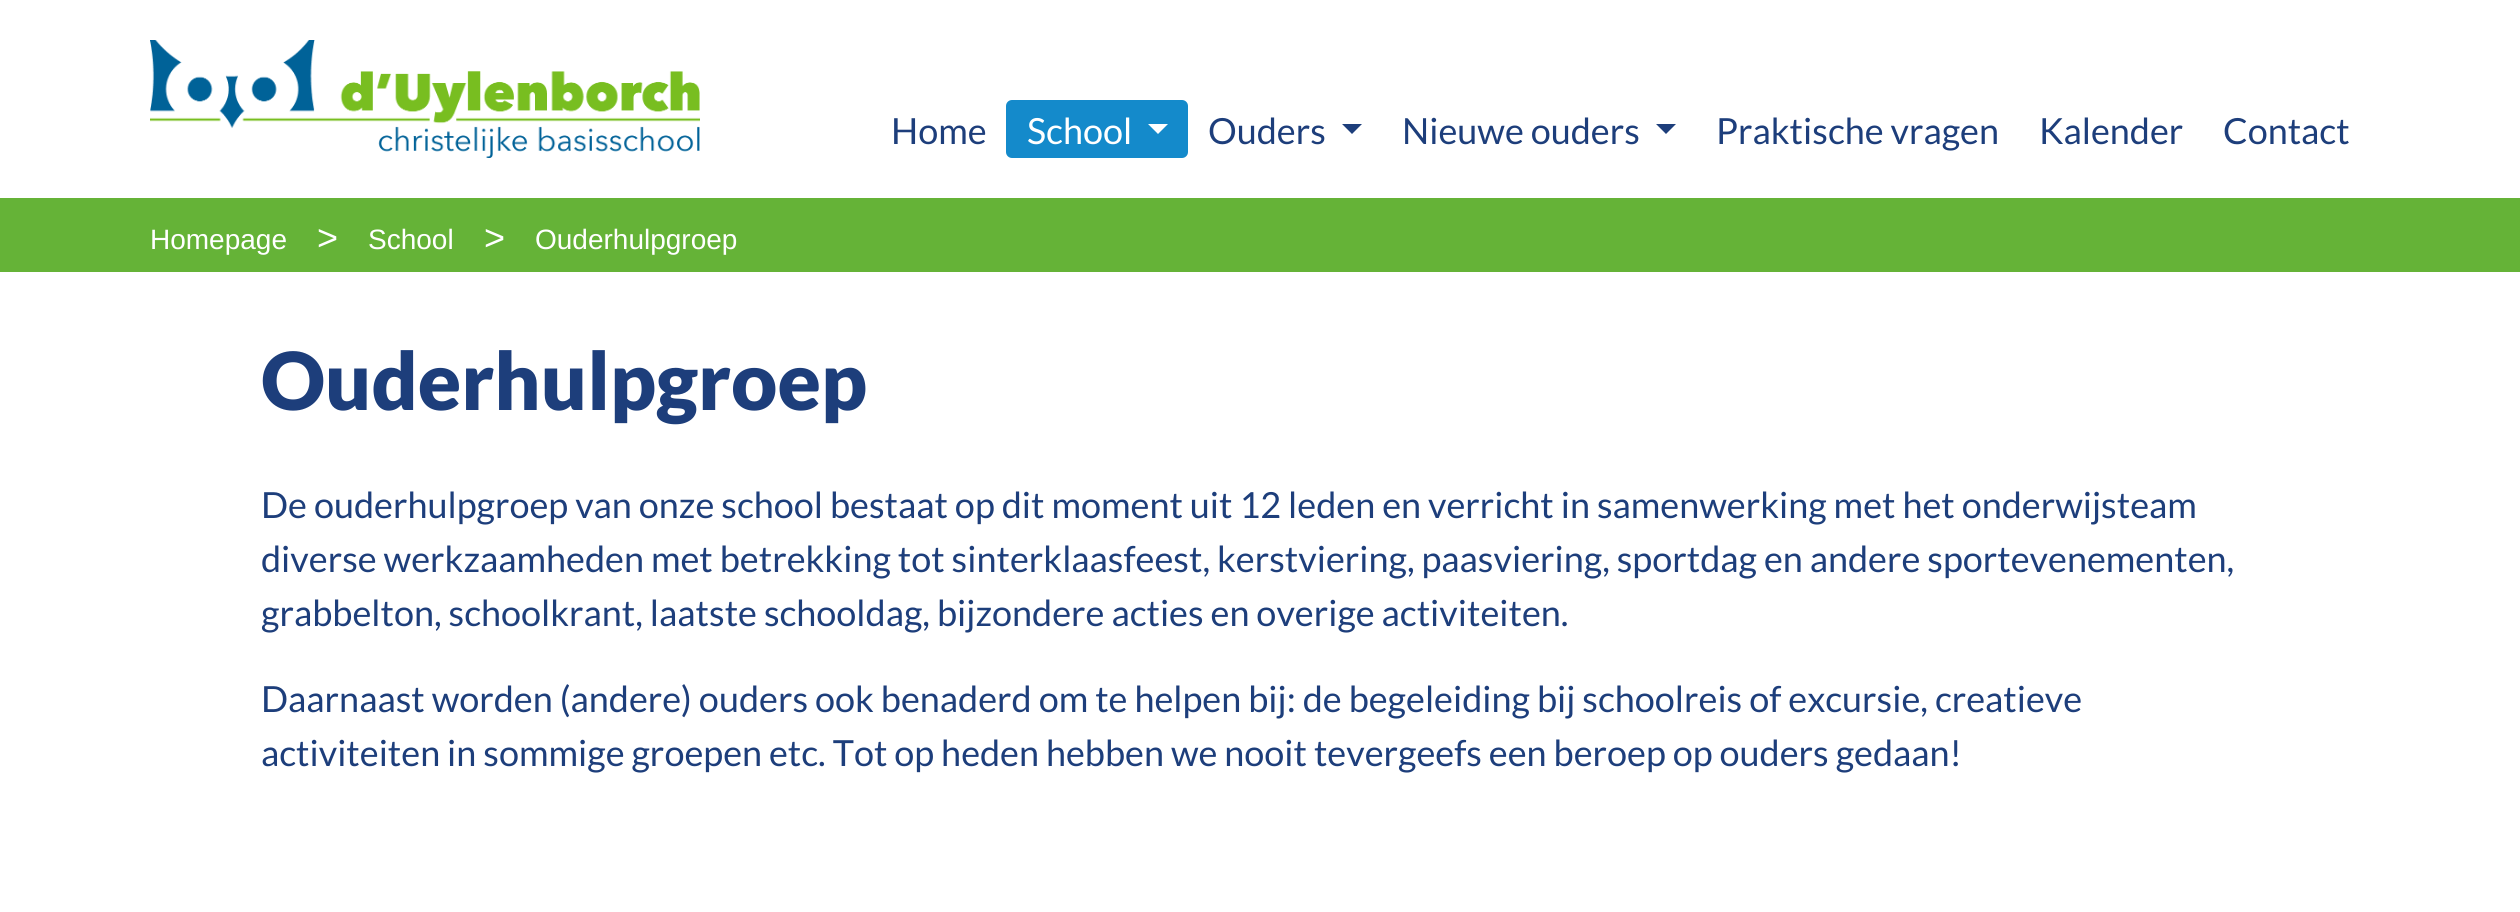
import math
import cairo


def round_path(ctx, x, y, w, h, r):
	ctx.new_sub_path()
	for i, (u, v) in enumerate([(x + w - r, y + h - r), (x + r, y + h - r), (x + r, y + r), (x + w - r, y + r)]):
		ctx.arc(u, v, r, i * math.pi / 2, (i + 1) * math.pi / 2)
	ctx.close_path()

def paste(ctx, path, x, y, w, h):
	ctx.save()
	ctx.set_source_surface(cairo.ImageSurface.create_from_png(path), x, y)
	ctx.rectangle(x, y, w, h)
	ctx.fill()
	ctx.restore()

def draw(ctx):
	ctx.set_source_rgb(1, 1, 1)
	ctx.paint()
	paste(ctx, 'media/1.png', 150, 40, 550, 118)
	ctx.select_font_face('Lato')
	ctx.set_font_size(36)
	ctx.set_source_rgb(0.114, 0.243, 0.482)
	ctx.move_to(891, 144)
	ctx.show_text('Home')
	ctx.set_source_rgb(0.082, 0.541, 0.796)
	round_path(ctx, 1006, 100, 182, 58, 6)
	ctx.fill()
	ctx.set_source_rgb(1, 1, 1)
	ctx.move_to(1027, 144)
	ctx.show_text('School')
	ctx.new_path()
	ctx.move_to(1148, 124)
	ctx.line_to(1168, 124)
	ctx.line_to(1158, 134)
	ctx.close_path()
	ctx.fill()
	ctx.set_source_rgb(0.114, 0.243, 0.482)
	ctx.move_to(1208, 144)
	ctx.show_text('Ouders')
	ctx.new_path()
	ctx.move_to(1342, 124)
	ctx.line_to(1362, 124)
	ctx.line_to(1352, 134)
	ctx.close_path()
	ctx.fill()
	ctx.move_to(1402, 144)
	ctx.show_text('Nieuwe ouders')
	ctx.new_path()
	ctx.move_to(1656, 124)
	ctx.line_to(1676, 124)
	ctx.line_to(1666, 134)
	ctx.close_path()
	ctx.fill()
	for x, y, s in [
		(1716, 144, 'Praktische vragen'),
		(2039, 144, 'Kalender'),
		(2223, 144, 'Contact'),
	]:
		ctx.move_to(x, y)
		ctx.show_text(s)
	ctx.set_source_rgb(0.396, 0.702, 0.216)
	ctx.rectangle(0, 198, 2520, 74)
	ctx.fill()
	ctx.select_font_face('Liberation Sans')
	ctx.set_font_size(28)
	ctx.set_source_rgb(1, 1, 1)
	ctx.move_to(150, 249)
	ctx.show_text('Homepage')
	ctx.set_font_size(36)
	ctx.move_to(317, 250)
	ctx.show_text('>')
	ctx.set_font_size(28)
	ctx.move_to(368, 249)
	ctx.show_text('School')
	ctx.set_font_size(36)
	ctx.move_to(484, 250)
	ctx.show_text('>')
	ctx.set_font_size(28)
	ctx.move_to(535, 249)
	ctx.show_text('Ouderhulpgroep')
	ctx.select_font_face('Lato Black')
	ctx.set_font_size(80)
	ctx.set_source_rgb(0.114, 0.243, 0.482)
	ctx.move_to(261, 410)
	ctx.show_text('Ouderhulpgroep')
	ctx.select_font_face('Lato')
	ctx.set_font_size(36)
	for x, y, s in [
		(261, 518, 'De ouderhulpgroep van onze school bestaat op dit moment uit 12 leden en verricht in samenwerking met het onderwijsteam'),
		(261, 572, 'diverse werkzaamheden met betrekking tot sinterklaasfeest, kerstviering, paasviering, sportdag en andere sportevenementen,'),
		(261, 626, 'grabbelton, schoolkrant, laatste schooldag, bijzondere acties en overige activiteiten.'),
		(261, 712, 'Daarnaast worden (andere) ouders ook benaderd om te helpen bij: de begeleiding bij schoolreis of excursie, creatieve'),
		(261, 766, 'activiteiten in sommige groepen etc. Tot op heden hebben we nooit tevergeefs een beroep op ouders gedaan!'),
	]:
		ctx.move_to(x, y)
		ctx.show_text(s)


surface = cairo.ImageSurface(cairo.FORMAT_RGB24, 2520, 912)
ctx = cairo.Context(surface)
options = cairo.FontOptions()
options.set_hint_metrics(cairo.HINT_METRICS_OFF)
options.set_hint_style(cairo.HINT_STYLE_NONE)
ctx.set_font_options(options)
ctx.set_miter_limit(4)
draw(ctx)
surface.write_to_png('image.png')
